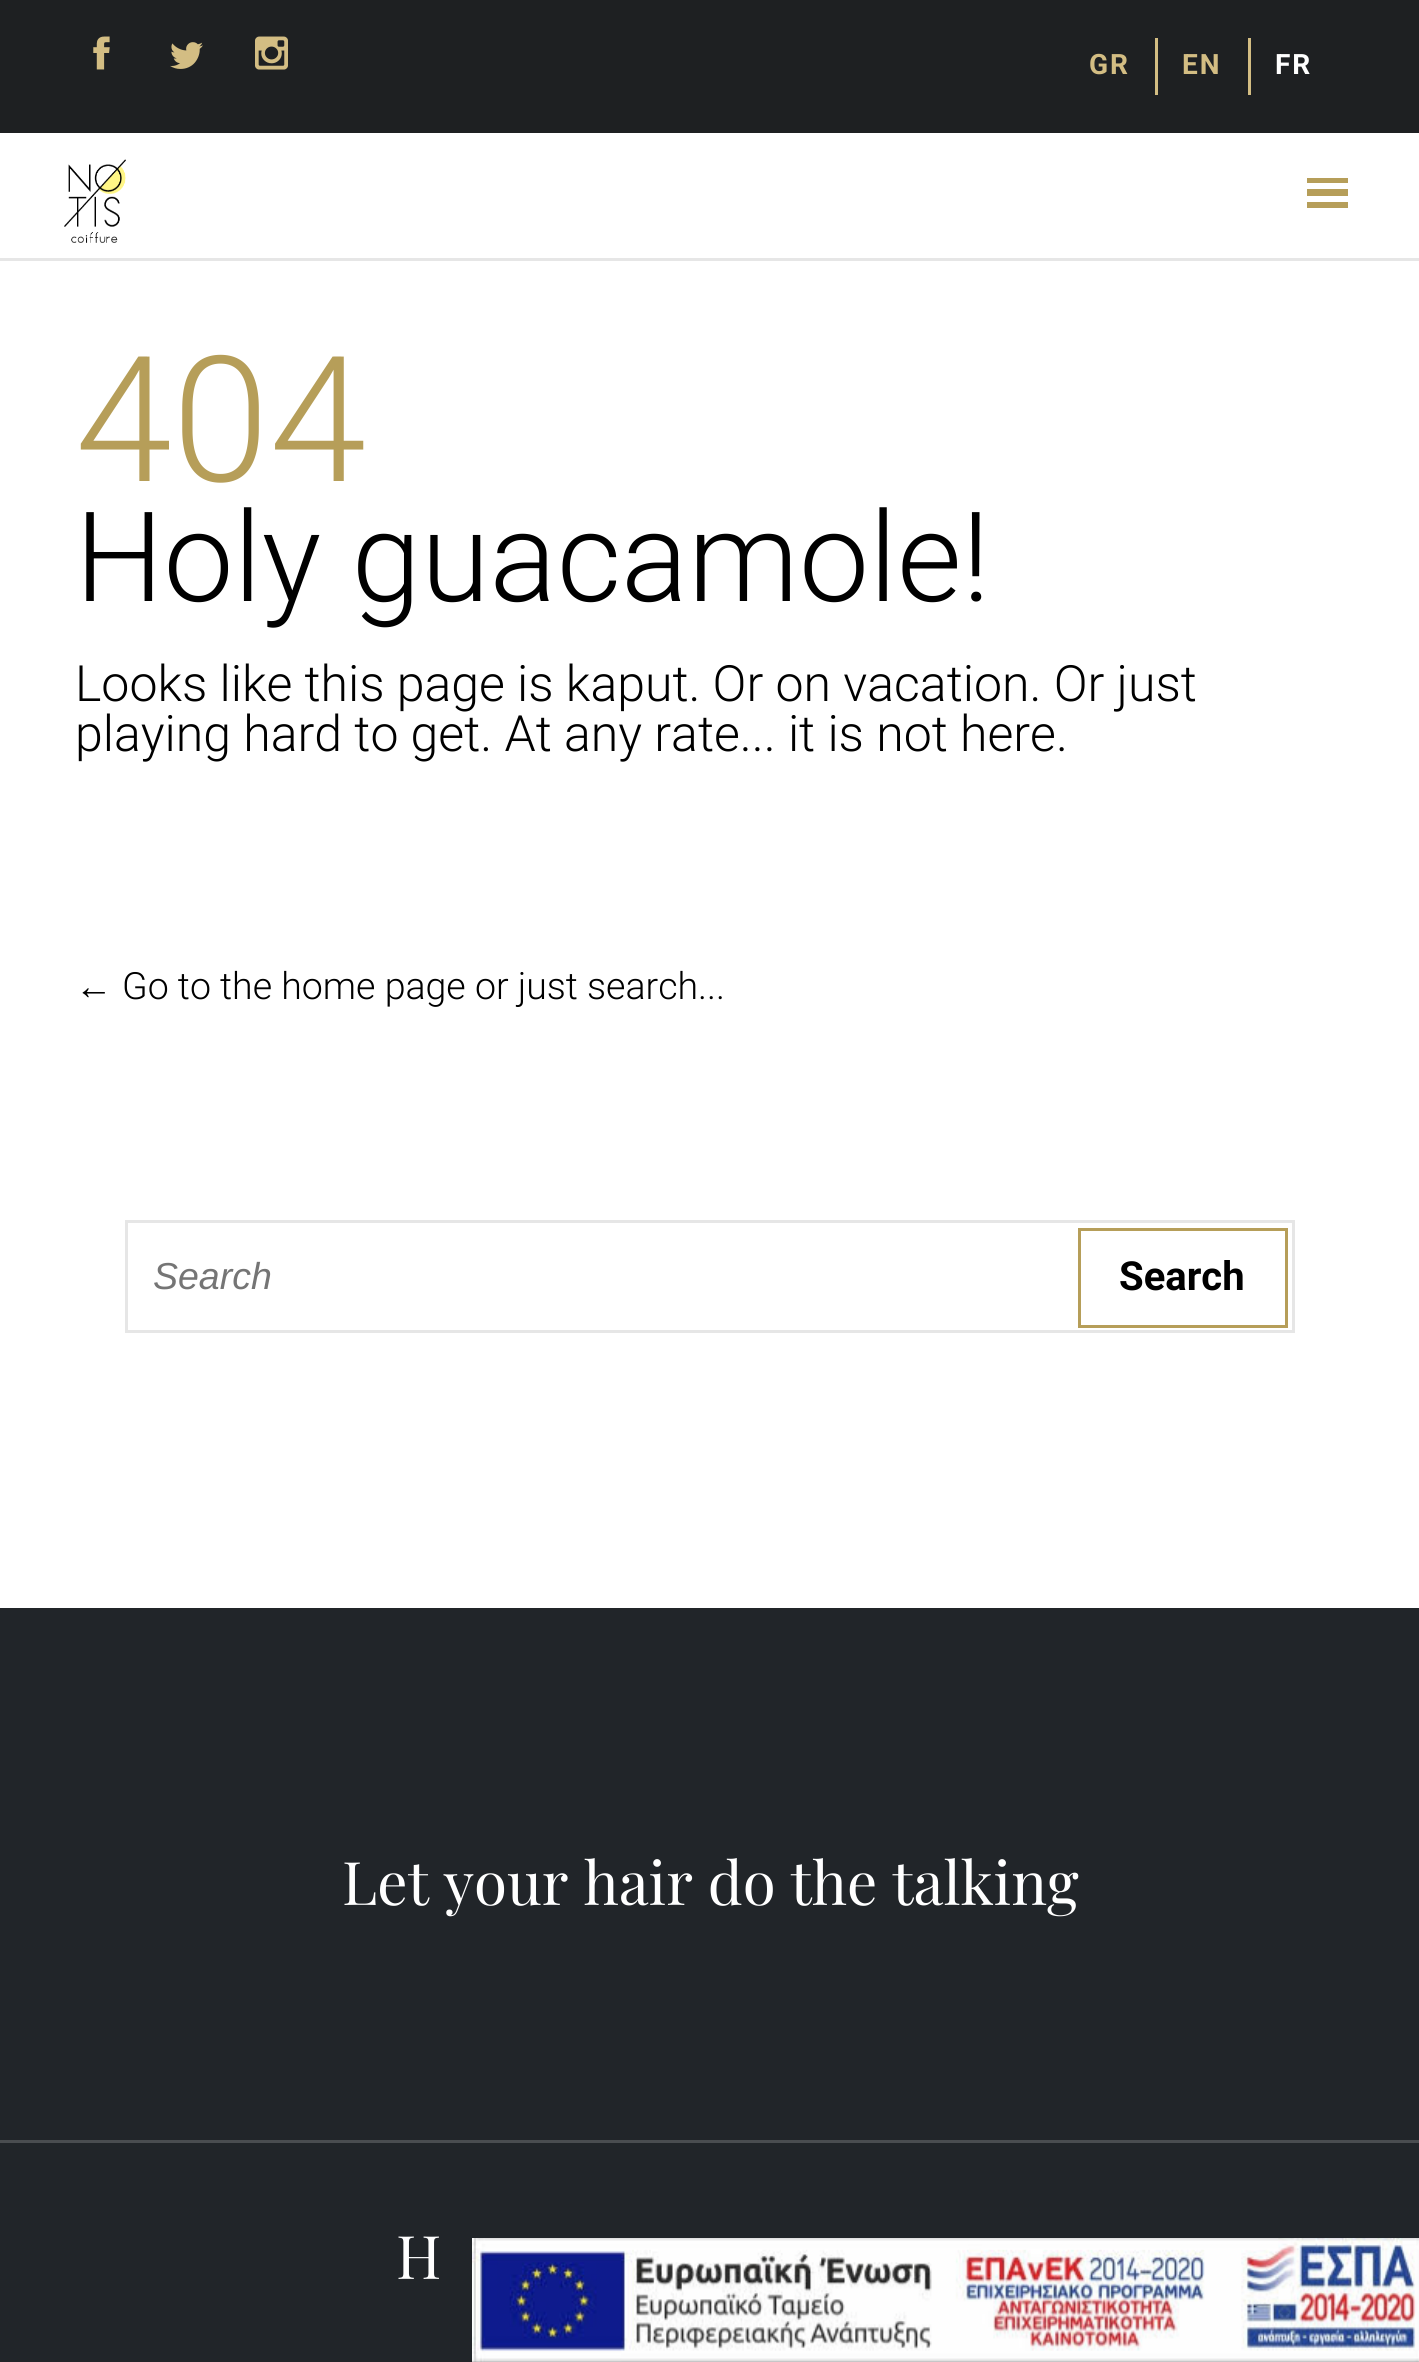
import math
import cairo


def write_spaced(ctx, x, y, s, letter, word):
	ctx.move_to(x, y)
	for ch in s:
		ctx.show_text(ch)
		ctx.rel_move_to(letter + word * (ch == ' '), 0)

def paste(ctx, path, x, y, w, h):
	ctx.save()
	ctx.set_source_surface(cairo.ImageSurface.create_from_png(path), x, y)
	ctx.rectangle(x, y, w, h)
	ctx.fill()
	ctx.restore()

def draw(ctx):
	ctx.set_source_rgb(1, 1, 1)
	ctx.paint()
	ctx.set_source_rgb(0.902, 0.902, 0.902)
	ctx.rectangle(0, 258, 1419, 3)
	ctx.fill()
	ctx.set_source_rgb(0.118, 0.125, 0.133)
	ctx.rectangle(0, 0, 1419, 133)
	ctx.fill()
	paste(ctx, 'media/1.png', 93, 36, 17, 34)
	paste(ctx, 'media/2.png', 170, 42, 33, 27)
	paste(ctx, 'media/3.png', 255, 36, 33, 34)
	ctx.set_source_rgb(0.827, 0.741, 0.514)
	ctx.rectangle(1155, 38, 3, 57)
	ctx.fill()
	ctx.select_font_face('Roboto', cairo.FONT_SLANT_NORMAL, cairo.FONT_WEIGHT_BOLD)
	ctx.set_font_size(28)
	write_spaced(ctx, 1089, 74, 'GR', 2, 0)
	ctx.rectangle(1248, 38, 3, 57)
	ctx.fill()
	write_spaced(ctx, 1182, 74, 'EN', 2, 0)
	ctx.set_source_rgb(1, 1, 1)
	write_spaced(ctx, 1275, 74, 'FR', 2, 0)
	paste(ctx, 'media/4.png', 64, 159, 62, 84)
	ctx.set_source_rgb(0.714, 0.62, 0.349)
	ctx.new_path()
	ctx.move_to(1307, 208)
	ctx.line_to(1348, 208)
	ctx.line_to(1348, 202)
	ctx.line_to(1307, 202)
	ctx.close_path()
	ctx.move_to(1307, 178)
	ctx.line_to(1307, 183)
	ctx.line_to(1348, 183)
	ctx.line_to(1348, 178)
	ctx.close_path()
	ctx.move_to(1307, 196)
	ctx.line_to(1348, 196)
	ctx.line_to(1348, 189)
	ctx.line_to(1307, 189)
	ctx.close_path()
	ctx.fill()
	ctx.select_font_face('Roboto Light')
	ctx.set_font_size(175)
	ctx.move_to(75, 481)
	ctx.show_text('404')
	ctx.set_font_size(125)
	ctx.set_source_rgb(0, 0, 0)
	ctx.move_to(75, 601)
	ctx.show_text('Holy guacamole!')
	ctx.set_font_size(50)
	ctx.move_to(75, 701)
	ctx.show_text('Looks like this page is kaput. Or on vacation. Or just')
	ctx.move_to(75, 751)
	ctx.show_text('playing hard to get. At any rate... it is not here.')
	ctx.select_font_face('Liberation Serif')
	ctx.set_font_size(37.5)
	ctx.move_to(75, 999)
	ctx.show_text('←')
	ctx.select_font_face('Roboto Light')
	ctx.move_to(122, 999)
	ctx.show_text('Go to the home page or just search...')
	ctx.rectangle(126.5, 1221.5, 1167, 110)
	ctx.set_source_rgb(0.902, 0.902, 0.902)
	ctx.set_line_width(3)
	ctx.stroke()
	ctx.select_font_face('Liberation Sans', cairo.FONT_SLANT_ITALIC)
	ctx.set_source_rgb(0.459, 0.459, 0.459)
	ctx.move_to(153, 1289)
	ctx.show_text('Search')
	ctx.rectangle(1079.5, 1229.5, 207, 97)
	ctx.set_source_rgb(0.714, 0.62, 0.349)
	ctx.stroke()
	ctx.select_font_face('Roboto', cairo.FONT_SLANT_NORMAL, cairo.FONT_WEIGHT_BOLD)
	ctx.set_font_size(40)
	ctx.set_source_rgb(0, 0, 0)
	ctx.move_to(1119, 1290)
	ctx.show_text('Search')
	ctx.set_source_rgb(0.129, 0.145, 0.161)
	ctx.rectangle(0, 1608, 1419, 754)
	ctx.fill()
	ctx.set_source_rgb(0.29, 0.302, 0.314)
	ctx.rectangle(0, 2140, 1419, 3)
	ctx.fill()
	ctx.select_font_face('Playfair Display')
	ctx.set_font_size(60)
	ctx.set_source_rgb(1, 1, 1)
	ctx.move_to(342, 1905)
	ctx.show_text('Let your hair do the talking')
	write_spaced(ctx, 396, 2279, 'H', 5, 0)
	paste(ctx, 'media/5.png', 472, 2238, 947, 124)


surface = cairo.ImageSurface(cairo.FORMAT_RGB24, 1419, 2362)
ctx = cairo.Context(surface)
options = cairo.FontOptions()
options.set_hint_metrics(cairo.HINT_METRICS_OFF)
options.set_hint_style(cairo.HINT_STYLE_NONE)
ctx.set_font_options(options)
ctx.set_miter_limit(4)
draw(ctx)
surface.write_to_png('image.png')
